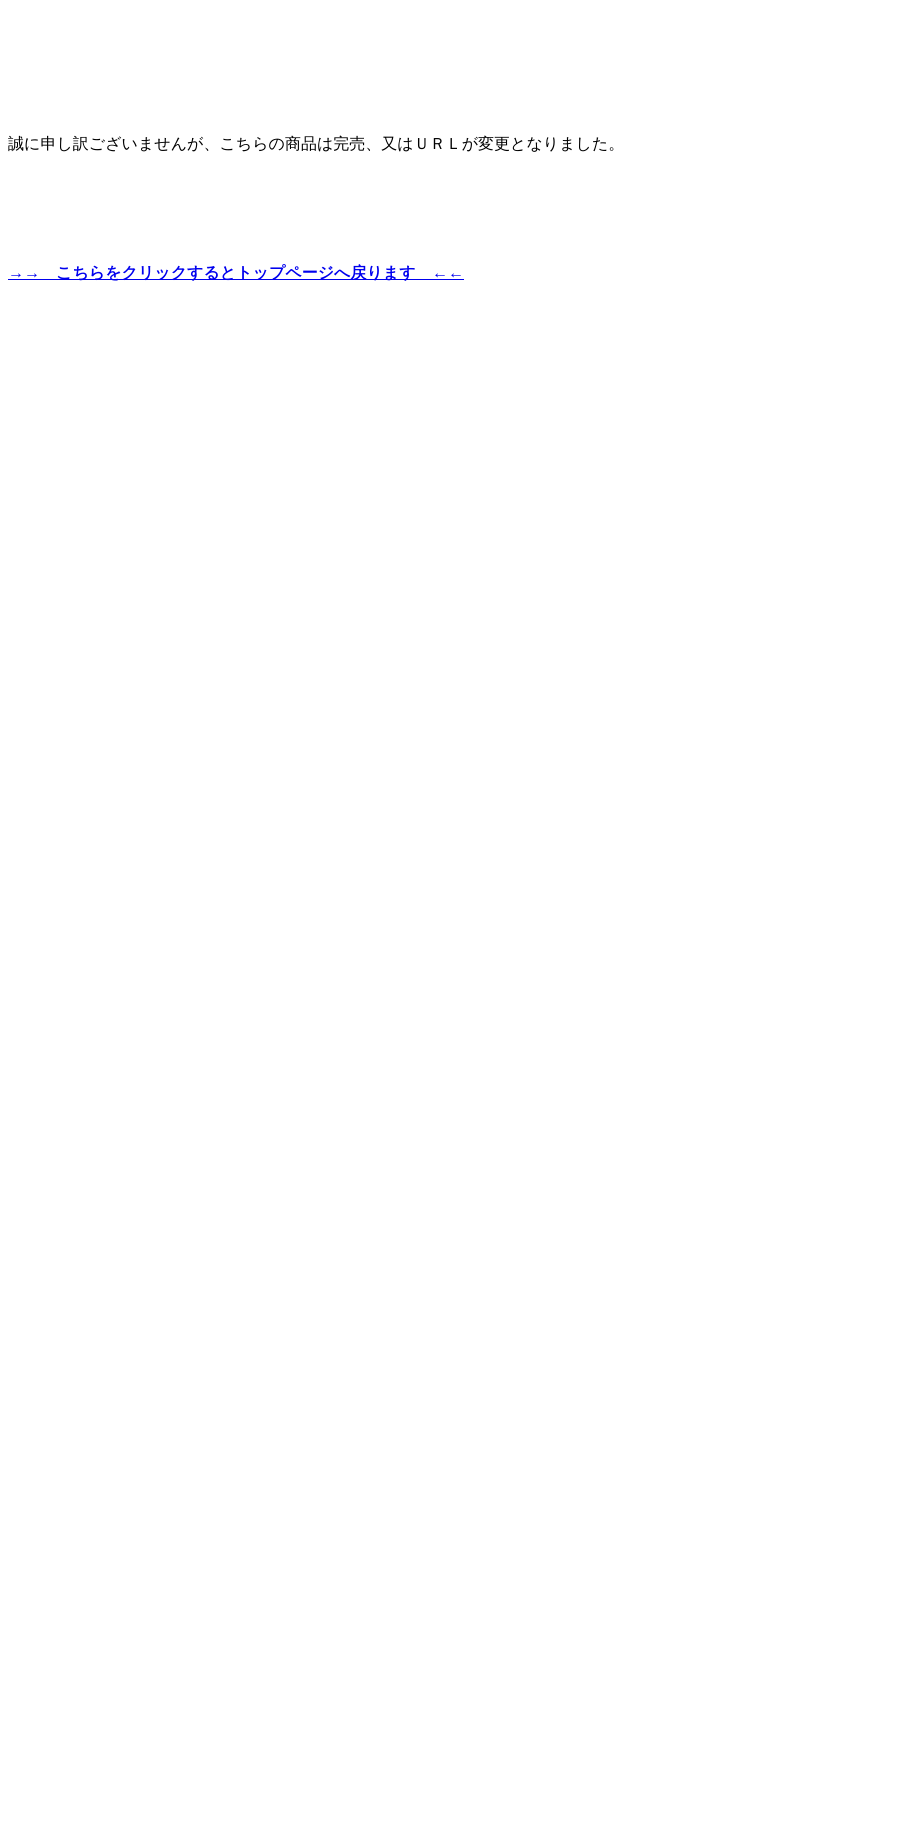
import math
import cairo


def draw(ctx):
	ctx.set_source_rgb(1, 1, 1)
	ctx.paint()
	ctx.select_font_face('WenQuanYi Zen Hei Medium')
	ctx.set_font_size(16)
	ctx.set_source_rgb(0, 0, 0)
	ctx.move_to(8, 149)
	ctx.show_text('誠に申し訳ございませんが、こちらの商品は完売、又はＵＲＬが変更となりました。')
	ctx.select_font_face('Liberation Serif', cairo.FONT_SLANT_NORMAL, cairo.FONT_WEIGHT_BOLD)
	ctx.set_source_rgb(0, 0, 0.933)
	ctx.move_to(8, 278)
	ctx.show_text('→→')
	ctx.rectangle(8, 279, 456, 1)
	ctx.fill()
	ctx.select_font_face('WenQuanYi Zen Hei', cairo.FONT_SLANT_NORMAL, cairo.FONT_WEIGHT_BOLD)
	ctx.move_to(56, 278)
	ctx.show_text('こちらをクリックするとトップページへ戻ります')
	ctx.select_font_face('Liberation Serif', cairo.FONT_SLANT_NORMAL, cairo.FONT_WEIGHT_BOLD)
	ctx.move_to(432, 278)
	ctx.show_text('←←')


surface = cairo.ImageSurface(cairo.FORMAT_RGB24, 900, 1838)
ctx = cairo.Context(surface)
options = cairo.FontOptions()
options.set_hint_metrics(cairo.HINT_METRICS_OFF)
options.set_hint_style(cairo.HINT_STYLE_NONE)
ctx.set_font_options(options)
ctx.set_miter_limit(4)
draw(ctx)
surface.write_to_png('image.png')
